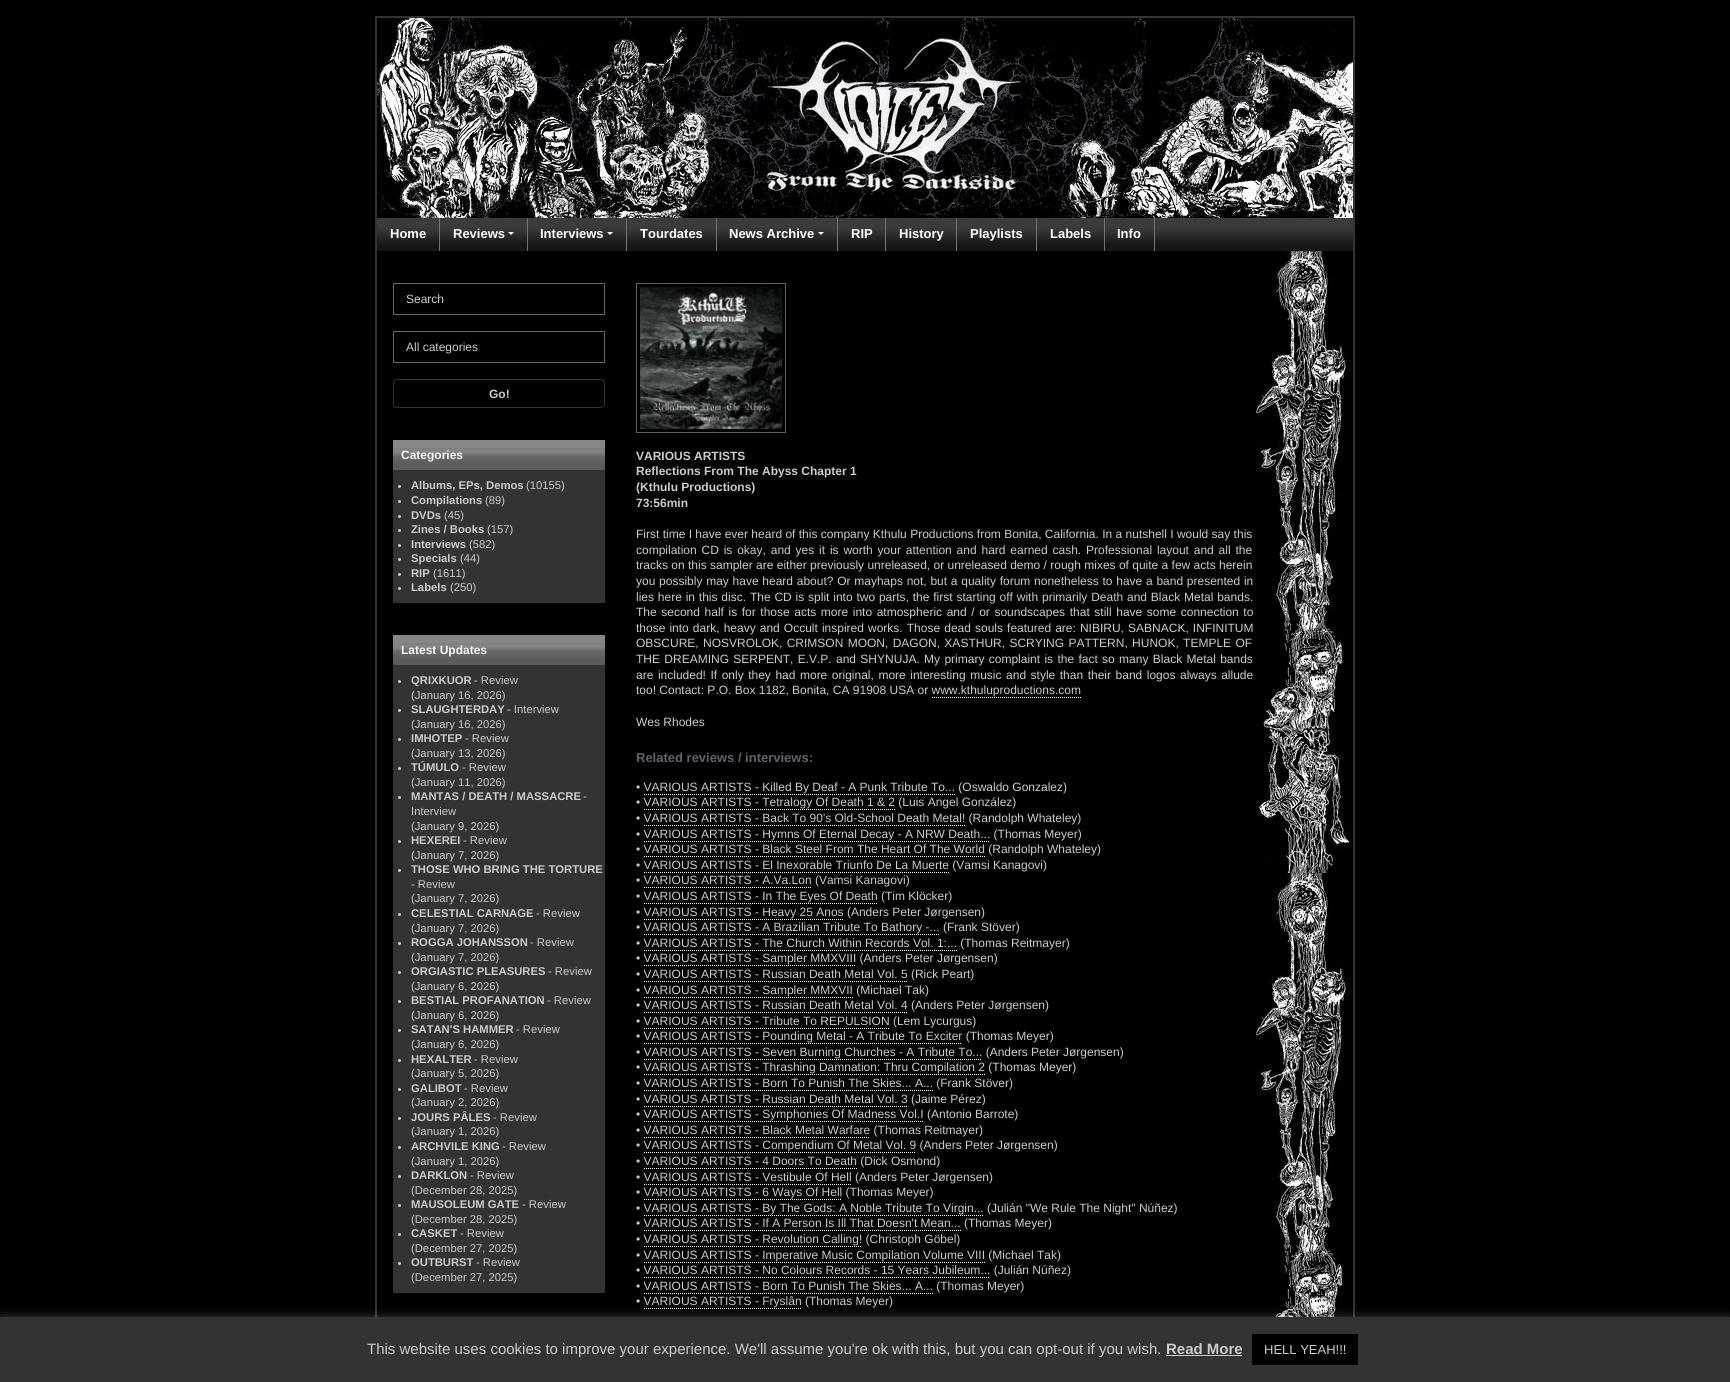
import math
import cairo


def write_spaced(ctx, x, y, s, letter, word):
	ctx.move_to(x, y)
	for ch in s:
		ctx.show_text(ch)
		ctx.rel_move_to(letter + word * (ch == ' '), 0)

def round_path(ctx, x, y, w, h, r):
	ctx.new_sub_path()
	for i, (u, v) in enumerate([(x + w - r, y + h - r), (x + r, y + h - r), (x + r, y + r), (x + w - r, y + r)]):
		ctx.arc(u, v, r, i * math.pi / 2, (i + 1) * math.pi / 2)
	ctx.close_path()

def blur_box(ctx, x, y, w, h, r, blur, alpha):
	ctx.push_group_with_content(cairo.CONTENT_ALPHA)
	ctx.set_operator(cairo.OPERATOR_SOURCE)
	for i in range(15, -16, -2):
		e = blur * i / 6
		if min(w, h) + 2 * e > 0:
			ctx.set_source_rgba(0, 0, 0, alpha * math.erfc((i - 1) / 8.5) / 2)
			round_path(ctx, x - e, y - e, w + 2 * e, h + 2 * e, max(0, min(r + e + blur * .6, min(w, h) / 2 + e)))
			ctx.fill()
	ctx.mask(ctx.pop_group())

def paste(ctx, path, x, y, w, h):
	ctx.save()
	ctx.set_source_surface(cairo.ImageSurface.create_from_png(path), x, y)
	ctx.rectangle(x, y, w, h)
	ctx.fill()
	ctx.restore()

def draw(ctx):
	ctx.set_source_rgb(0, 0, 0)
	ctx.paint()
	paste(ctx, 'media/1.png', 377, 18, 976, 200)
	ctx.rectangle(376, 17, 978, 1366)
	ctx.set_source_rgb(0.2, 0.2, 0.2)
	ctx.stroke()
	paste(ctx, 'media/2.png', 377, 218, 976, 33)
	ctx.set_source_rgb(0.455, 0.455, 0.455)
	ctx.rectangle(439, 218, 1, 33)
	ctx.fill()
	ctx.select_font_face('Liberation Sans', cairo.FONT_SLANT_NORMAL, cairo.FONT_WEIGHT_BOLD)
	ctx.set_font_size(13)
	ctx.set_source_rgb(1, 1, 1)
	ctx.move_to(390, 238)
	ctx.show_text('Home')
	ctx.set_source_rgb(0.455, 0.455, 0.455)
	ctx.rectangle(527, 218, 1, 33)
	ctx.fill()
	ctx.set_source_rgb(1, 1, 1)
	ctx.move_to(453, 238)
	ctx.show_text('Reviews')
	ctx.new_path()
	ctx.move_to(508, 232)
	ctx.line_to(514, 232)
	ctx.line_to(511, 235)
	ctx.close_path()
	ctx.fill()
	ctx.set_source_rgb(0.455, 0.455, 0.455)
	ctx.rectangle(626, 218, 1, 33)
	ctx.fill()
	ctx.set_source_rgb(1, 1, 1)
	ctx.move_to(540, 238)
	ctx.show_text('Interviews')
	ctx.new_path()
	ctx.move_to(607, 232)
	ctx.line_to(613, 232)
	ctx.line_to(610, 235)
	ctx.close_path()
	ctx.fill()
	ctx.set_source_rgb(0.455, 0.455, 0.455)
	ctx.rectangle(716, 218, 1, 33)
	ctx.fill()
	ctx.set_source_rgb(1, 1, 1)
	ctx.move_to(640, 238)
	ctx.show_text('Tourdates')
	ctx.set_source_rgb(0.455, 0.455, 0.455)
	ctx.rectangle(837, 218, 1, 33)
	ctx.fill()
	ctx.set_source_rgb(1, 1, 1)
	ctx.move_to(729, 238)
	ctx.show_text('News Archive')
	ctx.new_path()
	ctx.move_to(818, 232)
	ctx.line_to(824, 232)
	ctx.line_to(821, 235)
	ctx.close_path()
	ctx.fill()
	ctx.set_source_rgb(0.455, 0.455, 0.455)
	ctx.rectangle(885, 218, 1, 33)
	ctx.fill()
	ctx.set_source_rgb(1, 1, 1)
	ctx.move_to(851, 238)
	ctx.show_text('RIP')
	ctx.set_source_rgb(0.455, 0.455, 0.455)
	ctx.rectangle(956, 218, 1, 33)
	ctx.fill()
	ctx.set_source_rgb(1, 1, 1)
	ctx.move_to(899, 238)
	ctx.show_text('History')
	ctx.set_source_rgb(0.455, 0.455, 0.455)
	ctx.rectangle(1036, 218, 1, 33)
	ctx.fill()
	ctx.set_source_rgb(1, 1, 1)
	ctx.move_to(970, 238)
	ctx.show_text('Playlists')
	ctx.set_source_rgb(0.455, 0.455, 0.455)
	ctx.rectangle(1104, 218, 1, 33)
	ctx.fill()
	ctx.set_source_rgb(1, 1, 1)
	ctx.move_to(1050, 238)
	ctx.show_text('Labels')
	ctx.set_source_rgb(0.455, 0.455, 0.455)
	ctx.rectangle(1154, 218, 1, 33)
	ctx.fill()
	ctx.set_source_rgb(1, 1, 1)
	ctx.move_to(1117, 238)
	ctx.show_text('Info')
	ctx.rectangle(393.5, 283.5, 211, 31)
	ctx.set_source_rgb(0.4, 0.4, 0.4)
	ctx.set_line_width(1)
	ctx.stroke()
	ctx.select_font_face('Liberation Sans')
	ctx.set_font_size(12)
	ctx.set_source_rgb(0.8, 0.8, 0.8)
	ctx.move_to(406, 303)
	ctx.show_text('Search')
	ctx.rectangle(393.5, 331.5, 211, 31)
	ctx.set_source_rgb(0.4, 0.4, 0.4)
	ctx.stroke()
	ctx.set_source_rgb(0.8, 0.8, 0.8)
	ctx.move_to(406, 351)
	ctx.show_text('All categories')
	round_path(ctx, 393.5, 379.5, 211, 28, 3.5)
	ctx.set_source_rgb(0.2, 0.2, 0.2)
	ctx.stroke()
	ctx.select_font_face('Liberation Sans', cairo.FONT_SLANT_NORMAL, cairo.FONT_WEIGHT_BOLD)
	ctx.set_source_rgb(0.8, 0.8, 0.8)
	ctx.move_to(489, 398)
	ctx.show_text('Go!')
	ctx.set_source_rgb(0.2, 0.2, 0.2)
	ctx.rectangle(393, 470, 212, 133)
	ctx.fill()
	paste(ctx, 'media/3.png', 393, 440, 212, 30)
	ctx.set_source_rgb(0.973, 0.976, 0.98)
	ctx.move_to(401, 459)
	ctx.show_text('Categories')
	ctx.set_source_rgb(0.8, 0.8, 0.8)
	ctx.new_path()
	ctx.arc(399.5, 486.5, 1.5, 0, 2 * math.pi)
	ctx.fill()
	ctx.set_font_size(11.25)
	ctx.move_to(411, 489)
	ctx.show_text('Albums, EPs, Demos')
	ctx.select_font_face('Liberation Sans')
	ctx.move_to(526, 489)
	ctx.show_text('(10155)')
	ctx.new_path()
	ctx.arc(399.5, 501.5, 1.5, 0, 2 * math.pi)
	ctx.fill()
	ctx.select_font_face('Liberation Sans', cairo.FONT_SLANT_NORMAL, cairo.FONT_WEIGHT_BOLD)
	ctx.move_to(411, 504)
	ctx.show_text('Compilations')
	ctx.select_font_face('Liberation Sans')
	ctx.move_to(485, 504)
	ctx.show_text('(89)')
	ctx.new_path()
	ctx.arc(399.5, 516.5, 1.5, 0, 2 * math.pi)
	ctx.fill()
	ctx.select_font_face('Liberation Sans', cairo.FONT_SLANT_NORMAL, cairo.FONT_WEIGHT_BOLD)
	ctx.move_to(411, 519)
	ctx.show_text('DVDs')
	ctx.select_font_face('Liberation Sans')
	ctx.move_to(444, 519)
	ctx.show_text('(45)')
	ctx.new_path()
	ctx.arc(399.5, 530.5, 1.5, 0, 2 * math.pi)
	ctx.fill()
	ctx.select_font_face('Liberation Sans', cairo.FONT_SLANT_NORMAL, cairo.FONT_WEIGHT_BOLD)
	ctx.move_to(411, 533)
	ctx.show_text('Zines / Books')
	ctx.select_font_face('Liberation Sans')
	ctx.move_to(487, 533)
	ctx.show_text('(157)')
	ctx.new_path()
	ctx.arc(399.5, 545.5, 1.5, 0, 2 * math.pi)
	ctx.fill()
	ctx.select_font_face('Liberation Sans', cairo.FONT_SLANT_NORMAL, cairo.FONT_WEIGHT_BOLD)
	ctx.move_to(411, 548)
	ctx.show_text('Interviews')
	ctx.select_font_face('Liberation Sans')
	ctx.move_to(469, 548)
	ctx.show_text('(582)')
	ctx.new_path()
	ctx.arc(399.5, 559.5, 1.5, 0, 2 * math.pi)
	ctx.fill()
	ctx.select_font_face('Liberation Sans', cairo.FONT_SLANT_NORMAL, cairo.FONT_WEIGHT_BOLD)
	ctx.move_to(411, 562)
	ctx.show_text('Specials')
	ctx.select_font_face('Liberation Sans')
	ctx.move_to(460, 562)
	ctx.show_text('(44)')
	ctx.new_path()
	ctx.arc(399.5, 574.5, 1.5, 0, 2 * math.pi)
	ctx.fill()
	ctx.select_font_face('Liberation Sans', cairo.FONT_SLANT_NORMAL, cairo.FONT_WEIGHT_BOLD)
	ctx.move_to(411, 577)
	ctx.show_text('RIP')
	ctx.select_font_face('Liberation Sans')
	ctx.move_to(433, 577)
	ctx.show_text('(1611)')
	ctx.new_path()
	ctx.arc(399.5, 588.5, 1.5, 0, 2 * math.pi)
	ctx.fill()
	ctx.select_font_face('Liberation Sans', cairo.FONT_SLANT_NORMAL, cairo.FONT_WEIGHT_BOLD)
	ctx.move_to(411, 591)
	ctx.show_text('Labels')
	ctx.select_font_face('Liberation Sans')
	ctx.move_to(450, 591)
	ctx.show_text('(250)')
	ctx.set_source_rgb(0.2, 0.2, 0.2)
	ctx.rectangle(393, 665, 212, 628)
	ctx.fill()
	paste(ctx, 'media/3.png', 393, 635, 212, 30)
	ctx.select_font_face('Liberation Sans', cairo.FONT_SLANT_NORMAL, cairo.FONT_WEIGHT_BOLD)
	ctx.set_font_size(12)
	ctx.set_source_rgb(0.973, 0.976, 0.98)
	ctx.move_to(401, 654)
	ctx.show_text('Latest Updates')
	ctx.set_source_rgb(0.8, 0.8, 0.8)
	ctx.new_path()
	ctx.arc(399.5, 681.5, 1.5, 0, 2 * math.pi)
	ctx.fill()
	ctx.set_font_size(11.25)
	ctx.move_to(411, 684)
	ctx.show_text('QRIXKUOR')
	ctx.select_font_face('Liberation Sans')
	ctx.move_to(474, 684)
	ctx.show_text('- Review')
	ctx.move_to(411, 699)
	ctx.show_text('(January 16, 2026)')
	ctx.new_path()
	ctx.arc(399.5, 710.5, 1.5, 0, 2 * math.pi)
	ctx.fill()
	ctx.select_font_face('Liberation Sans', cairo.FONT_SLANT_NORMAL, cairo.FONT_WEIGHT_BOLD)
	ctx.move_to(411, 713)
	ctx.show_text('SLAUGHTERDAY')
	ctx.select_font_face('Liberation Sans')
	ctx.move_to(507, 713)
	ctx.show_text('- Interview')
	ctx.move_to(411, 728)
	ctx.show_text('(January 16, 2026)')
	ctx.new_path()
	ctx.arc(399.5, 739.5, 1.5, 0, 2 * math.pi)
	ctx.fill()
	ctx.select_font_face('Liberation Sans', cairo.FONT_SLANT_NORMAL, cairo.FONT_WEIGHT_BOLD)
	ctx.move_to(411, 742)
	ctx.show_text('IMHOTEP')
	ctx.select_font_face('Liberation Sans')
	ctx.move_to(465, 742)
	ctx.show_text('- Review')
	ctx.move_to(411, 757)
	ctx.show_text('(January 13, 2026)')
	ctx.new_path()
	ctx.arc(399.5, 768.5, 1.5, 0, 2 * math.pi)
	ctx.fill()
	ctx.select_font_face('Liberation Sans', cairo.FONT_SLANT_NORMAL, cairo.FONT_WEIGHT_BOLD)
	ctx.move_to(411, 771)
	ctx.show_text('TÚMULO')
	ctx.select_font_face('Liberation Sans')
	ctx.move_to(462, 771)
	ctx.show_text('- Review')
	ctx.move_to(411, 786)
	ctx.show_text('(January 11, 2026)')
	ctx.new_path()
	ctx.arc(399.5, 797.5, 1.5, 0, 2 * math.pi)
	ctx.fill()
	ctx.select_font_face('Liberation Sans', cairo.FONT_SLANT_NORMAL, cairo.FONT_WEIGHT_BOLD)
	ctx.move_to(411, 800)
	ctx.show_text('MANTAS / DEATH / MASSACRE')
	ctx.select_font_face('Liberation Sans')
	for x, y, s in [
		(583, 800, '-'),
		(411, 815, 'Interview'),
		(411, 830, '(January 9, 2026)'),
	]:
		ctx.move_to(x, y)
		ctx.show_text(s)
	ctx.new_path()
	ctx.arc(399.5, 841.5, 1.5, 0, 2 * math.pi)
	ctx.fill()
	ctx.select_font_face('Liberation Sans', cairo.FONT_SLANT_NORMAL, cairo.FONT_WEIGHT_BOLD)
	ctx.move_to(411, 844)
	ctx.show_text('HEXEREI')
	ctx.select_font_face('Liberation Sans')
	ctx.move_to(463, 844)
	ctx.show_text('- Review')
	ctx.move_to(411, 859)
	ctx.show_text('(January 7, 2026)')
	ctx.new_path()
	ctx.arc(399.5, 870.5, 1.5, 0, 2 * math.pi)
	ctx.fill()
	ctx.select_font_face('Liberation Sans', cairo.FONT_SLANT_NORMAL, cairo.FONT_WEIGHT_BOLD)
	ctx.move_to(411, 873)
	ctx.show_text('THOSE WHO BRING THE TORTURE')
	ctx.select_font_face('Liberation Sans')
	ctx.move_to(411, 888)
	ctx.show_text('- Review')
	ctx.move_to(411, 902)
	ctx.show_text('(January 7, 2026)')
	ctx.new_path()
	ctx.arc(399.5, 914.5, 1.5, 0, 2 * math.pi)
	ctx.fill()
	ctx.select_font_face('Liberation Sans', cairo.FONT_SLANT_NORMAL, cairo.FONT_WEIGHT_BOLD)
	ctx.move_to(411, 917)
	ctx.show_text('CELESTIAL CARNAGE')
	ctx.select_font_face('Liberation Sans')
	ctx.move_to(536, 917)
	ctx.show_text('- Review')
	ctx.move_to(411, 932)
	ctx.show_text('(January 7, 2026)')
	ctx.new_path()
	ctx.arc(399.5, 943.5, 1.5, 0, 2 * math.pi)
	ctx.fill()
	ctx.select_font_face('Liberation Sans', cairo.FONT_SLANT_NORMAL, cairo.FONT_WEIGHT_BOLD)
	ctx.move_to(411, 946)
	ctx.show_text('ROGGA JOHANSSON')
	ctx.select_font_face('Liberation Sans')
	ctx.move_to(530, 946)
	ctx.show_text('- Review')
	ctx.move_to(411, 961)
	ctx.show_text('(January 7, 2026)')
	ctx.new_path()
	ctx.arc(399.5, 972.5, 1.5, 0, 2 * math.pi)
	ctx.fill()
	ctx.select_font_face('Liberation Sans', cairo.FONT_SLANT_NORMAL, cairo.FONT_WEIGHT_BOLD)
	ctx.move_to(411, 975)
	ctx.show_text('ORGIASTIC PLEASURES')
	ctx.select_font_face('Liberation Sans')
	ctx.move_to(548, 975)
	ctx.show_text('- Review')
	ctx.move_to(411, 990)
	ctx.show_text('(January 6, 2026)')
	ctx.new_path()
	ctx.arc(399.5, 1001.5, 1.5, 0, 2 * math.pi)
	ctx.fill()
	ctx.select_font_face('Liberation Sans', cairo.FONT_SLANT_NORMAL, cairo.FONT_WEIGHT_BOLD)
	ctx.move_to(411, 1004)
	ctx.show_text('BESTIAL PROFANATION')
	ctx.select_font_face('Liberation Sans')
	ctx.move_to(547, 1004)
	ctx.show_text('- Review')
	ctx.move_to(411, 1019)
	ctx.show_text('(January 6, 2026)')
	ctx.new_path()
	ctx.arc(399.5, 1030.5, 1.5, 0, 2 * math.pi)
	ctx.fill()
	ctx.select_font_face('Liberation Sans', cairo.FONT_SLANT_NORMAL, cairo.FONT_WEIGHT_BOLD)
	ctx.move_to(411, 1033)
	ctx.show_text('SATAN\'S HAMMER')
	ctx.select_font_face('Liberation Sans')
	ctx.move_to(516, 1033)
	ctx.show_text('- Review')
	ctx.move_to(411, 1048)
	ctx.show_text('(January 6, 2026)')
	ctx.new_path()
	ctx.arc(399.5, 1060.5, 1.5, 0, 2 * math.pi)
	ctx.fill()
	ctx.select_font_face('Liberation Sans', cairo.FONT_SLANT_NORMAL, cairo.FONT_WEIGHT_BOLD)
	ctx.move_to(411, 1063)
	ctx.show_text('HEXALTER')
	ctx.select_font_face('Liberation Sans')
	ctx.move_to(474, 1063)
	ctx.show_text('- Review')
	ctx.move_to(411, 1077)
	ctx.show_text('(January 5, 2026)')
	ctx.new_path()
	ctx.arc(399.5, 1089.5, 1.5, 0, 2 * math.pi)
	ctx.fill()
	ctx.select_font_face('Liberation Sans', cairo.FONT_SLANT_NORMAL, cairo.FONT_WEIGHT_BOLD)
	ctx.move_to(411, 1092)
	ctx.show_text('GALIBOT')
	ctx.select_font_face('Liberation Sans')
	ctx.move_to(464, 1092)
	ctx.show_text('- Review')
	ctx.move_to(411, 1106)
	ctx.show_text('(January 2, 2026)')
	ctx.new_path()
	ctx.arc(399.5, 1118.5, 1.5, 0, 2 * math.pi)
	ctx.fill()
	ctx.select_font_face('Liberation Sans', cairo.FONT_SLANT_NORMAL, cairo.FONT_WEIGHT_BOLD)
	ctx.move_to(411, 1121)
	ctx.show_text('JOURS PÂLES')
	ctx.select_font_face('Liberation Sans')
	ctx.move_to(493, 1121)
	ctx.show_text('- Review')
	ctx.move_to(411, 1135)
	ctx.show_text('(January 1, 2026)')
	ctx.new_path()
	ctx.arc(399.5, 1147.5, 1.5, 0, 2 * math.pi)
	ctx.fill()
	ctx.select_font_face('Liberation Sans', cairo.FONT_SLANT_NORMAL, cairo.FONT_WEIGHT_BOLD)
	ctx.move_to(411, 1150)
	ctx.show_text('ARCHVILE KING')
	ctx.select_font_face('Liberation Sans')
	ctx.move_to(502, 1150)
	ctx.show_text('- Review')
	ctx.move_to(411, 1165)
	ctx.show_text('(January 1, 2026)')
	ctx.new_path()
	ctx.arc(399.5, 1176.5, 1.5, 0, 2 * math.pi)
	ctx.fill()
	ctx.select_font_face('Liberation Sans', cairo.FONT_SLANT_NORMAL, cairo.FONT_WEIGHT_BOLD)
	ctx.move_to(411, 1179)
	ctx.show_text('DARKLON')
	ctx.select_font_face('Liberation Sans')
	ctx.move_to(470, 1179)
	ctx.show_text('- Review')
	ctx.move_to(411, 1194)
	ctx.show_text('(December 28, 2025)')
	ctx.new_path()
	ctx.arc(399.5, 1205.5, 1.5, 0, 2 * math.pi)
	ctx.fill()
	ctx.select_font_face('Liberation Sans', cairo.FONT_SLANT_NORMAL, cairo.FONT_WEIGHT_BOLD)
	ctx.move_to(411, 1208)
	ctx.show_text('MAUSOLEUM GATE')
	ctx.select_font_face('Liberation Sans')
	ctx.move_to(522, 1208)
	ctx.show_text('- Review')
	ctx.move_to(411, 1223)
	ctx.show_text('(December 28, 2025)')
	ctx.new_path()
	ctx.arc(399.5, 1234.5, 1.5, 0, 2 * math.pi)
	ctx.fill()
	ctx.select_font_face('Liberation Sans', cairo.FONT_SLANT_NORMAL, cairo.FONT_WEIGHT_BOLD)
	ctx.move_to(411, 1237)
	ctx.show_text('CASKET')
	ctx.select_font_face('Liberation Sans')
	ctx.move_to(460, 1237)
	ctx.show_text('- Review')
	ctx.move_to(411, 1252)
	ctx.show_text('(December 27, 2025)')
	ctx.new_path()
	ctx.arc(399.5, 1263.5, 1.5, 0, 2 * math.pi)
	ctx.fill()
	ctx.select_font_face('Liberation Sans', cairo.FONT_SLANT_NORMAL, cairo.FONT_WEIGHT_BOLD)
	ctx.move_to(411, 1266)
	ctx.show_text('OUTBURST')
	ctx.select_font_face('Liberation Sans')
	ctx.move_to(476, 1266)
	ctx.show_text('- Review')
	ctx.move_to(411, 1281)
	ctx.show_text('(December 27, 2025)')
	paste(ctx, 'media/4.png', 1255, 251, 96, 1066)
	ctx.rectangle(636.5, 283.5, 149, 149)
	ctx.set_source_rgb(0.376, 0.376, 0.376)
	ctx.stroke()
	paste(ctx, 'media/5.png', 640, 287, 142, 142)
	ctx.select_font_face('Liberation Sans', cairo.FONT_SLANT_NORMAL, cairo.FONT_WEIGHT_BOLD)
	ctx.set_font_size(12)
	ctx.set_source_rgb(0.8, 0.8, 0.8)
	for x, y, s in [
		(636, 460, 'VARIOUS ARTISTS'),
		(636, 475, 'Reflections From The Abyss Chapter 1'),
		(636, 491, '(Kthulu Productions)'),
		(636, 507, '73:56min'),
	]:
		ctx.move_to(x, y)
		ctx.show_text(s)
	ctx.select_font_face('Liberation Sans')
	ctx.move_to(636, 538)
	ctx.show_text('First time I have ever heard of this company Kthulu Productions from Bonita, California. In a nutshell I would say this')
	write_spaced(ctx, 636, 554, 'compilation CD is okay, and yes it is worth your attention and hard earned cash. Professional layout and all the', 0, 1.5)
	ctx.move_to(636, 569)
	ctx.show_text('tracks on this sampler are either previously unreleased, or unreleased demo / rough mixes of quite a few acts herein')
	write_spaced(ctx, 636, 585, 'you possibly may have heard about? Or mayhaps not, but a quality forum nonetheless to have a band presented in', 0, 0.4)
	write_spaced(ctx, 636, 601, 'lies here in this disc. The CD is split into two parts, the first starting off with primarily Death and Black Metal bands.', 0, 0.5)
	write_spaced(ctx, 636, 616, 'The second half is for those acts more into atmospheric and / or soundscapes that still have some connection to', 0, 1.25)
	write_spaced(ctx, 636, 632, 'those into dark, heavy and Occult inspired works. Those dead souls featured are: NIBIRU, SABNACK, INFINITUM', 0, 0.75)
	write_spaced(ctx, 636, 647, 'OBSCURE, NOSVROLOK, CRIMSON MOON, DAGON, XASTHUR, SCRYING PATTERN, HUNOK, TEMPLE OF', 0, 1)
	write_spaced(ctx, 636, 663, 'THE DREAMING SERPENT, E.V.P. and SHYNUJA. My primary complaint is the fact so many Black Metal bands', 0, 1)
	write_spaced(ctx, 636, 679, 'are included! If only they had more original, more interesting music and style than their band logos always allude', 0, 1.2)
	ctx.move_to(636, 694)
	ctx.show_text('too! Contact: P.O. Box 1182, Bonita, CA 91908 USA or www.kthuluproductions.com')
	ctx.new_path()
	ctx.move_to(932, 697.5)
	ctx.line_to(1081, 697.5)
	ctx.set_source_rgb(1, 1, 1)
	ctx.set_dash([1, 1])
	ctx.stroke()
	ctx.set_source_rgb(0.8, 0.8, 0.8)
	ctx.move_to(636, 726)
	ctx.show_text('Wes Rhodes')
	ctx.select_font_face('Liberation Sans', cairo.FONT_SLANT_NORMAL, cairo.FONT_WEIGHT_BOLD)
	ctx.set_font_size(13)
	ctx.set_source_rgb(0.373, 0.388, 0.431)
	ctx.move_to(636, 762)
	ctx.show_text('Related reviews / interviews:')
	ctx.select_font_face('Liberation Sans')
	ctx.set_font_size(12)
	ctx.set_source_rgb(0.8, 0.8, 0.8)
	ctx.move_to(636, 791)
	ctx.show_text('• VARIOUS ARTISTS - Killed By Deaf - A Punk Tribute To... (Oswaldo Gonzalez)')
	ctx.new_path()
	ctx.move_to(644, 794.5)
	ctx.line_to(955, 794.5)
	ctx.set_source_rgb(1, 1, 1)
	ctx.stroke()
	ctx.set_source_rgb(0.8, 0.8, 0.8)
	ctx.move_to(636, 806)
	ctx.show_text('• VARIOUS ARTISTS - Tetralogy Of Death 1 & 2 (Luis Angel González)')
	ctx.new_path()
	ctx.move_to(644, 809.5)
	ctx.line_to(895, 809.5)
	ctx.set_source_rgb(1, 1, 1)
	ctx.stroke()
	ctx.set_source_rgb(0.8, 0.8, 0.8)
	ctx.move_to(636, 822)
	ctx.show_text('• VARIOUS ARTISTS - Back To 90\'s Old-School Death Metal! (Randolph Whateley)')
	ctx.new_path()
	ctx.move_to(644, 825.5)
	ctx.line_to(965, 825.5)
	ctx.set_source_rgb(1, 1, 1)
	ctx.stroke()
	ctx.set_source_rgb(0.8, 0.8, 0.8)
	ctx.move_to(636, 838)
	ctx.show_text('• VARIOUS ARTISTS - Hymns Of Eternal Decay - A NRW Death... (Thomas Meyer)')
	ctx.new_path()
	ctx.move_to(644, 841.5)
	ctx.line_to(990, 841.5)
	ctx.set_source_rgb(1, 1, 1)
	ctx.stroke()
	ctx.set_source_rgb(0.8, 0.8, 0.8)
	ctx.move_to(636, 853)
	ctx.show_text('• VARIOUS ARTISTS - Black Steel From The Heart Of The World (Randolph Whateley)')
	ctx.new_path()
	ctx.move_to(644, 856.5)
	ctx.line_to(985, 856.5)
	ctx.set_source_rgb(1, 1, 1)
	ctx.stroke()
	ctx.set_source_rgb(0.8, 0.8, 0.8)
	ctx.move_to(636, 869)
	ctx.show_text('• VARIOUS ARTISTS - El Inexorable Triunfo De La Muerte (Vamsi Kanagovi)')
	ctx.new_path()
	ctx.move_to(644, 872.5)
	ctx.line_to(949, 872.5)
	ctx.set_source_rgb(1, 1, 1)
	ctx.stroke()
	ctx.set_source_rgb(0.8, 0.8, 0.8)
	ctx.move_to(636, 884)
	ctx.show_text('• VARIOUS ARTISTS - A.Va.Lon (Vamsi Kanagovi)')
	ctx.new_path()
	ctx.move_to(644, 887.5)
	ctx.line_to(812, 887.5)
	ctx.set_source_rgb(1, 1, 1)
	ctx.stroke()
	ctx.set_source_rgb(0.8, 0.8, 0.8)
	ctx.move_to(636, 900)
	ctx.show_text('• VARIOUS ARTISTS - In The Eyes Of Death (Tim Klöcker)')
	ctx.new_path()
	ctx.move_to(644, 903.5)
	ctx.line_to(878, 903.5)
	ctx.set_source_rgb(1, 1, 1)
	ctx.stroke()
	ctx.set_source_rgb(0.8, 0.8, 0.8)
	ctx.move_to(636, 916)
	ctx.show_text('• VARIOUS ARTISTS - Heavy 25 Anos (Anders Peter Jørgensen)')
	ctx.new_path()
	ctx.move_to(644, 919.5)
	ctx.line_to(844, 919.5)
	ctx.set_source_rgb(1, 1, 1)
	ctx.stroke()
	ctx.set_source_rgb(0.8, 0.8, 0.8)
	ctx.move_to(636, 931)
	ctx.show_text('• VARIOUS ARTISTS - A Brazilian Tribute To Bathory -... (Frank Stöver)')
	ctx.new_path()
	ctx.move_to(644, 934.5)
	ctx.line_to(940, 934.5)
	ctx.set_source_rgb(1, 1, 1)
	ctx.stroke()
	ctx.set_source_rgb(0.8, 0.8, 0.8)
	ctx.move_to(636, 947)
	ctx.show_text('• VARIOUS ARTISTS - The Church Within Records Vol. 1:... (Thomas Reitmayer)')
	ctx.new_path()
	ctx.move_to(644, 950.5)
	ctx.line_to(957, 950.5)
	ctx.set_source_rgb(1, 1, 1)
	ctx.stroke()
	ctx.set_source_rgb(0.8, 0.8, 0.8)
	ctx.move_to(636, 962)
	ctx.show_text('• VARIOUS ARTISTS - Sampler MMXVIII (Anders Peter Jørgensen)')
	ctx.new_path()
	ctx.move_to(644, 965.5)
	ctx.line_to(856, 965.5)
	ctx.set_source_rgb(1, 1, 1)
	ctx.stroke()
	ctx.set_source_rgb(0.8, 0.8, 0.8)
	ctx.move_to(636, 978)
	ctx.show_text('• VARIOUS ARTISTS - Russian Death Metal Vol. 5 (Rick Peart)')
	ctx.new_path()
	ctx.move_to(644, 981.5)
	ctx.line_to(908, 981.5)
	ctx.set_source_rgb(1, 1, 1)
	ctx.stroke()
	ctx.set_source_rgb(0.8, 0.8, 0.8)
	ctx.move_to(636, 994)
	ctx.show_text('• VARIOUS ARTISTS - Sampler MMXVII (Michael Tak)')
	ctx.new_path()
	ctx.move_to(644, 997.5)
	ctx.line_to(853, 997.5)
	ctx.set_source_rgb(1, 1, 1)
	ctx.stroke()
	ctx.set_source_rgb(0.8, 0.8, 0.8)
	ctx.move_to(636, 1009)
	ctx.show_text('• VARIOUS ARTISTS - Russian Death Metal Vol. 4 (Anders Peter Jørgensen)')
	ctx.new_path()
	ctx.move_to(644, 1012.5)
	ctx.line_to(908, 1012.5)
	ctx.set_source_rgb(1, 1, 1)
	ctx.stroke()
	ctx.set_source_rgb(0.8, 0.8, 0.8)
	ctx.move_to(636, 1025)
	ctx.show_text('• VARIOUS ARTISTS - Tribute To REPULSION (Lem Lycurgus)')
	ctx.new_path()
	ctx.move_to(644, 1028.5)
	ctx.line_to(890, 1028.5)
	ctx.set_source_rgb(1, 1, 1)
	ctx.stroke()
	ctx.set_source_rgb(0.8, 0.8, 0.8)
	ctx.move_to(636, 1040)
	ctx.show_text('• VARIOUS ARTISTS - Pounding Metal - A Tribute To Exciter (Thomas Meyer)')
	ctx.new_path()
	ctx.move_to(644, 1043.5)
	ctx.line_to(962, 1043.5)
	ctx.set_source_rgb(1, 1, 1)
	ctx.stroke()
	ctx.set_source_rgb(0.8, 0.8, 0.8)
	ctx.move_to(636, 1056)
	ctx.show_text('• VARIOUS ARTISTS - Seven Burning Churches - A Tribute To... (Anders Peter Jørgensen)')
	ctx.new_path()
	ctx.move_to(644, 1059.5)
	ctx.line_to(982, 1059.5)
	ctx.set_source_rgb(1, 1, 1)
	ctx.stroke()
	ctx.set_source_rgb(0.8, 0.8, 0.8)
	ctx.move_to(636, 1071)
	ctx.show_text('• VARIOUS ARTISTS - Thrashing Damnation: Thru Compilation 2 (Thomas Meyer)')
	ctx.new_path()
	ctx.move_to(644, 1074.5)
	ctx.line_to(985, 1074.5)
	ctx.set_source_rgb(1, 1, 1)
	ctx.stroke()
	ctx.set_source_rgb(0.8, 0.8, 0.8)
	ctx.move_to(636, 1087)
	ctx.show_text('• VARIOUS ARTISTS - Born To Punish The Skies... A... (Frank Stöver)')
	ctx.new_path()
	ctx.move_to(644, 1090.5)
	ctx.line_to(933, 1090.5)
	ctx.set_source_rgb(1, 1, 1)
	ctx.stroke()
	ctx.set_source_rgb(0.8, 0.8, 0.8)
	ctx.move_to(636, 1103)
	ctx.show_text('• VARIOUS ARTISTS - Russian Death Metal Vol. 3 (Jaime Pérez)')
	ctx.new_path()
	ctx.move_to(644, 1106.5)
	ctx.line_to(908, 1106.5)
	ctx.set_source_rgb(1, 1, 1)
	ctx.stroke()
	ctx.set_source_rgb(0.8, 0.8, 0.8)
	ctx.move_to(636, 1118)
	ctx.show_text('• VARIOUS ARTISTS - Symphonies Of Madness Vol.I (Antonio Barrote)')
	ctx.new_path()
	ctx.move_to(644, 1121.5)
	ctx.line_to(924, 1121.5)
	ctx.set_source_rgb(1, 1, 1)
	ctx.stroke()
	ctx.set_source_rgb(0.8, 0.8, 0.8)
	ctx.move_to(636, 1134)
	ctx.show_text('• VARIOUS ARTISTS - Black Metal Warfare (Thomas Reitmayer)')
	ctx.new_path()
	ctx.move_to(644, 1137.5)
	ctx.line_to(870, 1137.5)
	ctx.set_source_rgb(1, 1, 1)
	ctx.stroke()
	ctx.set_source_rgb(0.8, 0.8, 0.8)
	ctx.move_to(636, 1149)
	ctx.show_text('• VARIOUS ARTISTS - Compendium Of Metal Vol. 9 (Anders Peter Jørgensen)')
	ctx.new_path()
	ctx.move_to(644, 1152.5)
	ctx.line_to(916, 1152.5)
	ctx.set_source_rgb(1, 1, 1)
	ctx.stroke()
	ctx.set_source_rgb(0.8, 0.8, 0.8)
	ctx.move_to(636, 1165)
	ctx.show_text('• VARIOUS ARTISTS - 4 Doors To Death (Dick Osmond)')
	ctx.new_path()
	ctx.move_to(644, 1168.5)
	ctx.line_to(857, 1168.5)
	ctx.set_source_rgb(1, 1, 1)
	ctx.stroke()
	ctx.set_source_rgb(0.8, 0.8, 0.8)
	ctx.move_to(636, 1181)
	ctx.show_text('• VARIOUS ARTISTS - Vestibule Of Hell (Anders Peter Jørgensen)')
	ctx.new_path()
	ctx.move_to(644, 1184.5)
	ctx.line_to(852, 1184.5)
	ctx.set_source_rgb(1, 1, 1)
	ctx.stroke()
	ctx.set_source_rgb(0.8, 0.8, 0.8)
	ctx.move_to(636, 1196)
	ctx.show_text('• VARIOUS ARTISTS - 6 Ways Of Hell (Thomas Meyer)')
	ctx.new_path()
	ctx.move_to(644, 1199.5)
	ctx.line_to(842, 1199.5)
	ctx.set_source_rgb(1, 1, 1)
	ctx.stroke()
	ctx.set_source_rgb(0.8, 0.8, 0.8)
	ctx.move_to(636, 1212)
	ctx.show_text('• VARIOUS ARTISTS - By The Gods: A Noble Tribute To Virgin... (Julián "We Rule The Night" Núñez)')
	ctx.new_path()
	ctx.move_to(644, 1215.5)
	ctx.line_to(984, 1215.5)
	ctx.set_source_rgb(1, 1, 1)
	ctx.stroke()
	ctx.set_source_rgb(0.8, 0.8, 0.8)
	ctx.move_to(636, 1227)
	ctx.show_text('• VARIOUS ARTISTS - If A Person Is Ill That Doesn\'t Mean... (Thomas Meyer)')
	ctx.new_path()
	ctx.move_to(644, 1230.5)
	ctx.line_to(961, 1230.5)
	ctx.set_source_rgb(1, 1, 1)
	ctx.stroke()
	ctx.set_source_rgb(0.8, 0.8, 0.8)
	ctx.move_to(636, 1243)
	ctx.show_text('• VARIOUS ARTISTS - Revolution Calling! (Christoph Göbel)')
	ctx.new_path()
	ctx.move_to(644, 1246.5)
	ctx.line_to(862, 1246.5)
	ctx.set_source_rgb(1, 1, 1)
	ctx.stroke()
	ctx.set_source_rgb(0.8, 0.8, 0.8)
	ctx.move_to(636, 1259)
	ctx.show_text('• VARIOUS ARTISTS - Imperative Music Compilation Volume VIII (Michael Tak)')
	ctx.new_path()
	ctx.move_to(644, 1262.5)
	ctx.line_to(985, 1262.5)
	ctx.set_source_rgb(1, 1, 1)
	ctx.stroke()
	ctx.set_source_rgb(0.8, 0.8, 0.8)
	ctx.move_to(636, 1274)
	ctx.show_text('• VARIOUS ARTISTS - No Colours Records - 15 Years Jubileum... (Julián Núñez)')
	ctx.new_path()
	ctx.move_to(644, 1277.5)
	ctx.line_to(990, 1277.5)
	ctx.set_source_rgb(1, 1, 1)
	ctx.stroke()
	ctx.set_source_rgb(0.8, 0.8, 0.8)
	ctx.move_to(636, 1290)
	ctx.show_text('• VARIOUS ARTISTS - Born To Punish The Skies... A... (Thomas Meyer)')
	ctx.new_path()
	ctx.move_to(644, 1293.5)
	ctx.line_to(933, 1293.5)
	ctx.set_source_rgb(1, 1, 1)
	ctx.stroke()
	ctx.set_source_rgb(0.8, 0.8, 0.8)
	ctx.move_to(636, 1305)
	ctx.show_text('• VARIOUS ARTISTS - Fryslân (Thomas Meyer)')
	ctx.new_path()
	ctx.move_to(644, 1308.5)
	ctx.line_to(802, 1308.5)
	ctx.set_source_rgb(1, 1, 1)
	ctx.stroke()
	ctx.set_source_rgb(0.675, 0.671, 0.671)
	blur_box(ctx, 0, 1316, 1730, 65, 0, 5, 0.3)
	ctx.set_source_rgb(0.2, 0.2, 0.2)
	ctx.rectangle(0, 1317, 1730, 65)
	ctx.fill()
	ctx.set_font_size(15)
	ctx.set_source_rgb(0.8, 0.8, 0.8)
	ctx.move_to(367, 1354)
	ctx.show_text('This website uses cookies to improve your experience. We\'ll assume you\'re ok with this, but you can opt-out if you wish.')
	ctx.select_font_face('Liberation Sans', cairo.FONT_SLANT_NORMAL, cairo.FONT_WEIGHT_BOLD)
	ctx.move_to(1166, 1354)
	ctx.show_text('Read More')
	ctx.rectangle(1166, 1355, 76, 1)
	ctx.fill()
	ctx.set_source_rgb(0, 0, 0)
	ctx.rectangle(1252, 1334, 106, 31)
	ctx.fill()
	ctx.select_font_face('Liberation Sans')
	ctx.set_font_size(13)
	ctx.set_source_rgb(0.8, 0.8, 0.8)
	ctx.move_to(1264, 1354)
	ctx.show_text('HELL YEAH!!!')


surface = cairo.ImageSurface(cairo.FORMAT_RGB24, 1730, 1382)
ctx = cairo.Context(surface)
options = cairo.FontOptions()
options.set_hint_metrics(cairo.HINT_METRICS_OFF)
options.set_hint_style(cairo.HINT_STYLE_NONE)
ctx.set_font_options(options)
ctx.set_miter_limit(4)
draw(ctx)
surface.write_to_png('image.png')
